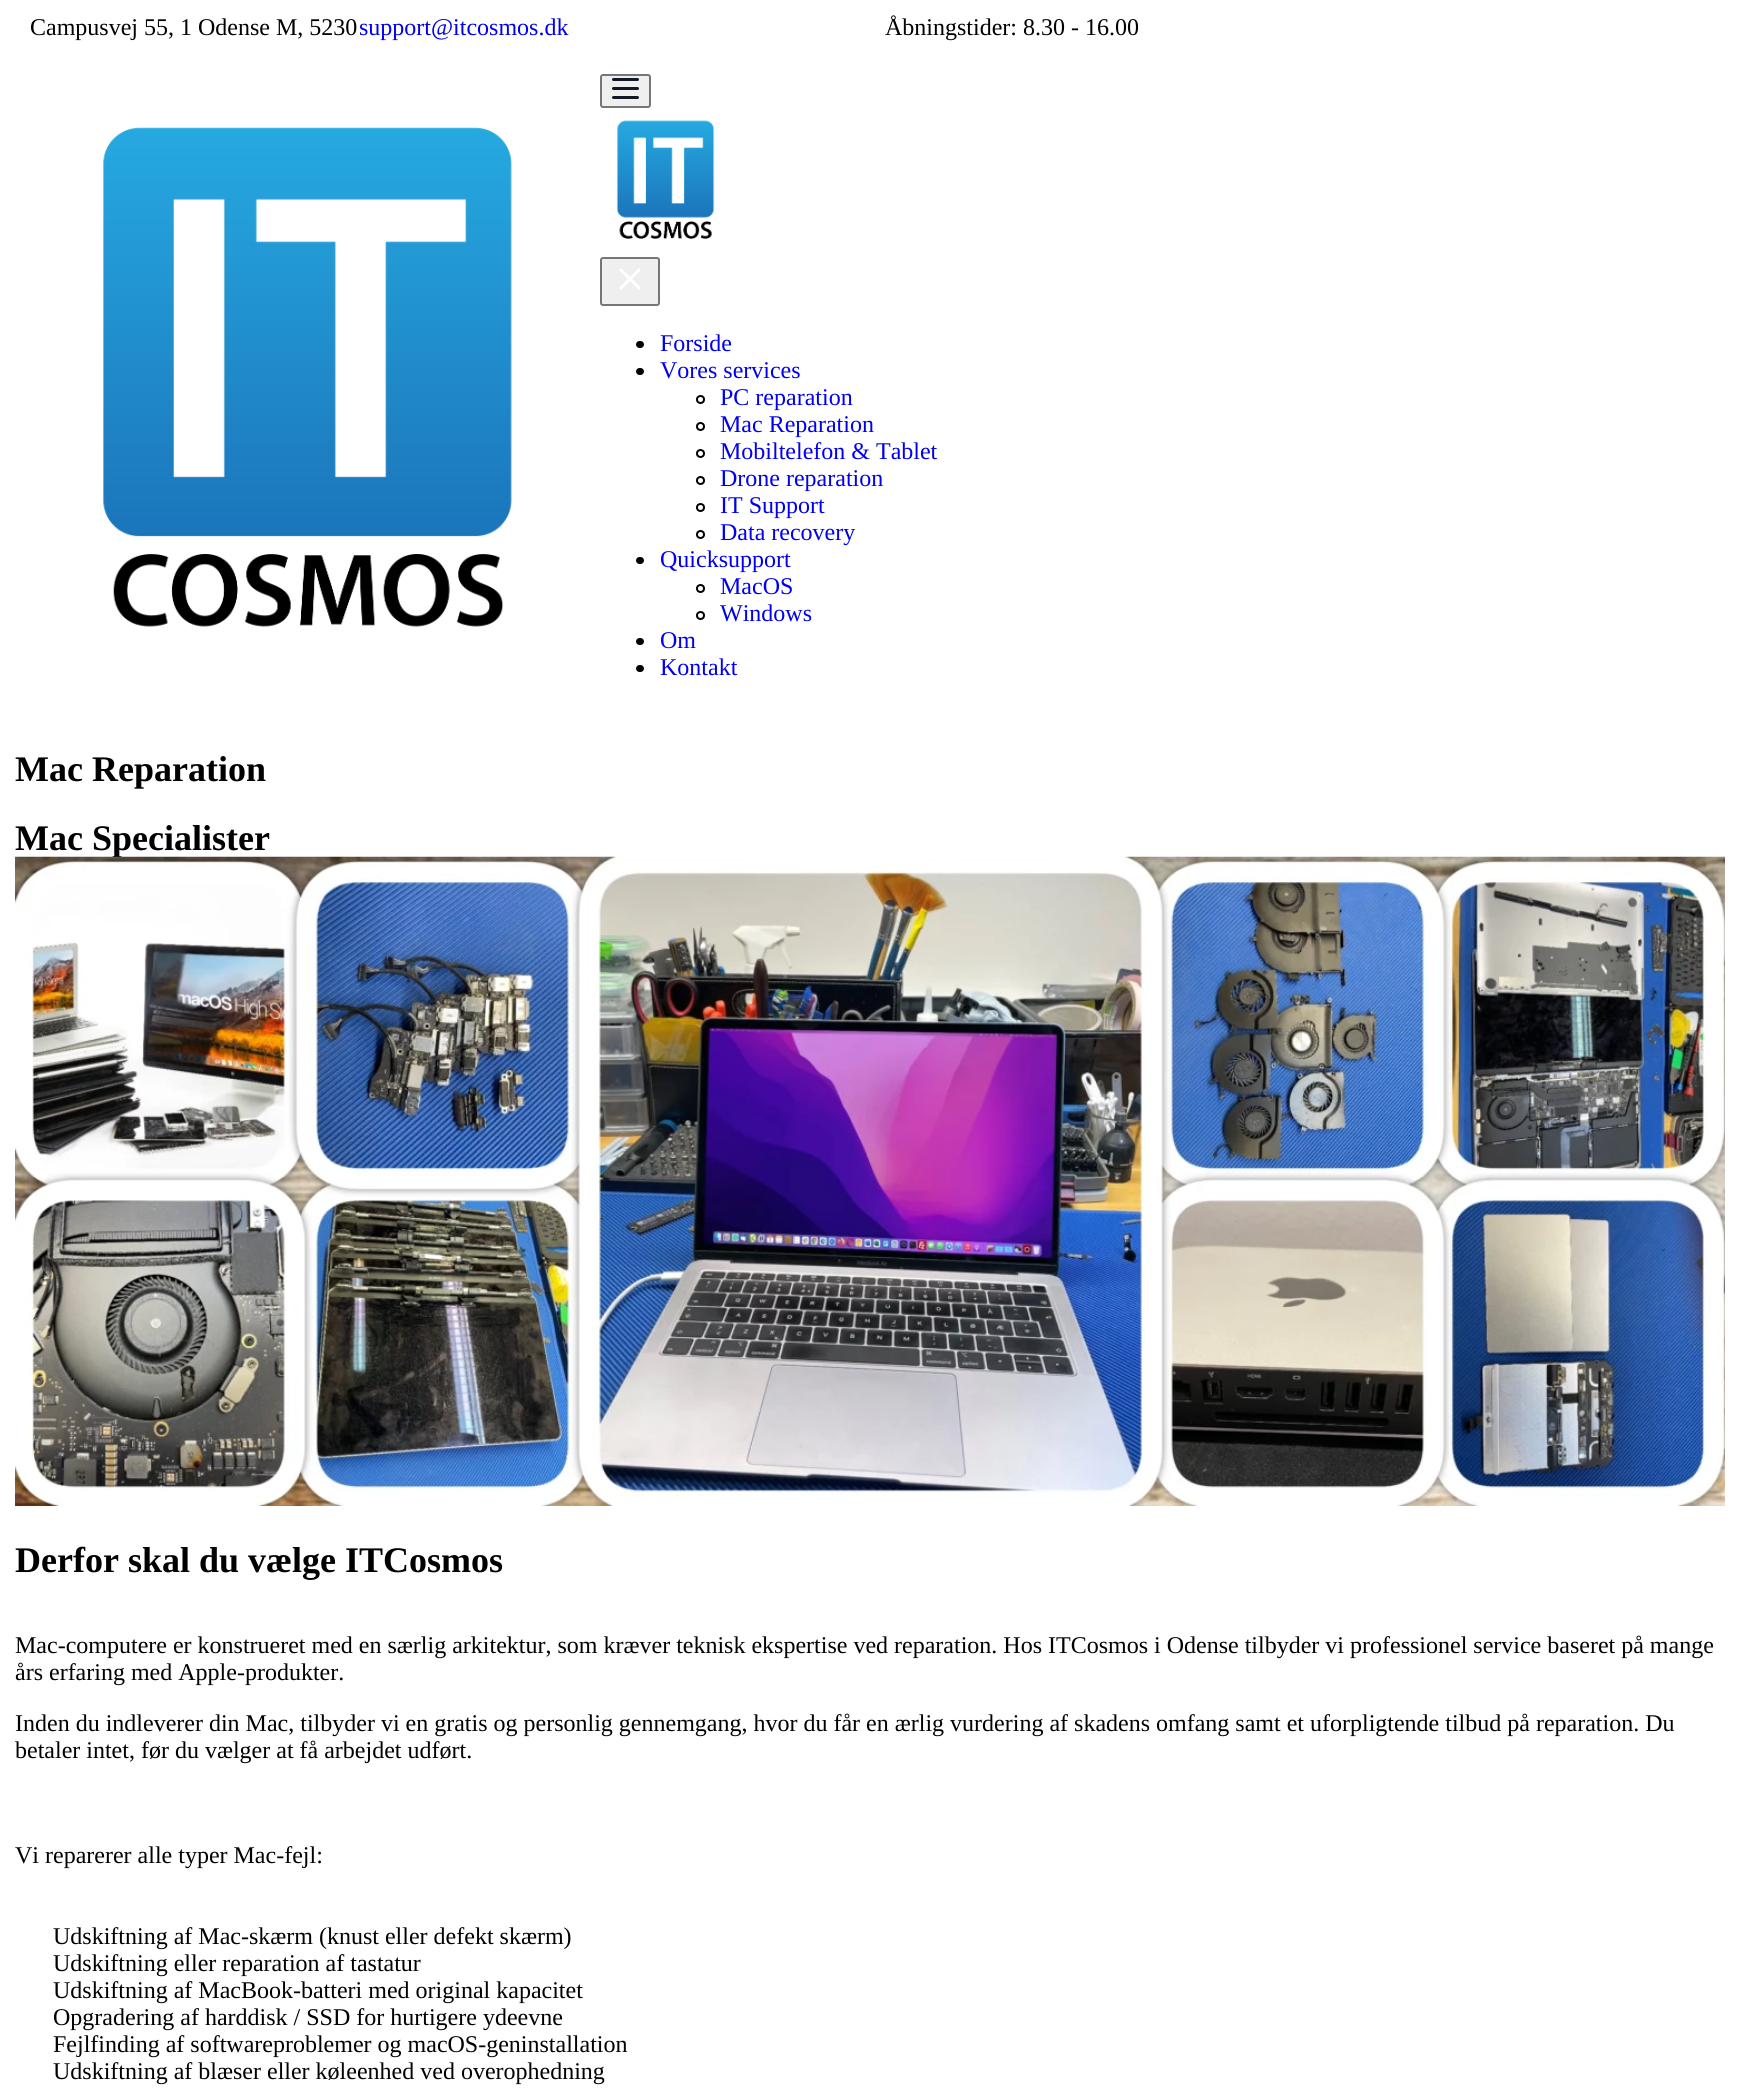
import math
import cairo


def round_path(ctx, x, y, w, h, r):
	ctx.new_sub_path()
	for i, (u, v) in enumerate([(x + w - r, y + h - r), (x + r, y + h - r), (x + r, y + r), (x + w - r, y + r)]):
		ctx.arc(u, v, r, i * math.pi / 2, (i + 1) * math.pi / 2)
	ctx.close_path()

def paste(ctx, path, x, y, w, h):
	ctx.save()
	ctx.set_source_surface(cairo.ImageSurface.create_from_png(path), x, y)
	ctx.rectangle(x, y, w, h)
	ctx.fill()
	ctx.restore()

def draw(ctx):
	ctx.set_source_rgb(1, 1, 1)
	ctx.paint()
	ctx.select_font_face('Liberation Serif')
	ctx.set_font_size(24)
	ctx.set_source_rgb(0, 0, 0)
	ctx.move_to(30, 35)
	ctx.show_text('Campusvej 55, 1 Odense M, 5230')
	ctx.set_source_rgb(0, 0, 0.933)
	ctx.move_to(359, 35)
	ctx.show_text('support@itcosmos.dk')
	ctx.set_source_rgb(0, 0, 0)
	ctx.move_to(885, 35)
	ctx.show_text('Åbningstider: 8.30 - 16.00')
	paste(ctx, 'media/1.png', 103, 127, 409, 500)
	ctx.set_source_rgb(0.937, 0.937, 0.937)
	round_path(ctx, 601, 75, 49, 32, 2)
	ctx.fill_preserve()
	ctx.set_source_rgb(0.463, 0.463, 0.463)
	ctx.stroke()
	ctx.new_path()
	ctx.move_to(613.5, 79.5)
	ctx.line_to(637.5, 79.5)
	ctx.move_to(613.5, 88.5)
	ctx.line_to(637.5, 88.5)
	ctx.move_to(613.5, 97.5)
	ctx.line_to(637.5, 97.5)
	ctx.set_source_rgb(0.067, 0.094, 0.153)
	ctx.set_line_width(3)
	ctx.set_line_cap(cairo.LINE_CAP_ROUND)
	ctx.set_line_join(cairo.LINE_JOIN_ROUND)
	ctx.stroke()
	paste(ctx, 'media/2.png', 616, 120, 99, 119)
	ctx.set_source_rgb(0.937, 0.937, 0.937)
	round_path(ctx, 601, 258, 58, 47, 2)
	ctx.fill_preserve()
	ctx.set_source_rgb(0.463, 0.463, 0.463)
	ctx.set_line_width(2)
	ctx.set_line_cap(cairo.LINE_CAP_BUTT)
	ctx.set_line_join(cairo.LINE_JOIN_MITER)
	ctx.stroke()
	ctx.new_path()
	ctx.move_to(621, 288)
	ctx.line_to(639, 270)
	ctx.move_to(621, 270)
	ctx.line_to(639, 288)
	ctx.set_source_rgb(1, 1, 1)
	ctx.set_line_width(3)
	ctx.set_line_cap(cairo.LINE_CAP_ROUND)
	ctx.set_line_join(cairo.LINE_JOIN_ROUND)
	ctx.stroke()
	ctx.set_source_rgb(0, 0, 0)
	round_path(ctx, 636, 341, 8, 7, 3.5)
	ctx.fill()
	ctx.set_source_rgb(0, 0, 0.933)
	ctx.move_to(660, 351)
	ctx.show_text('Forside')
	ctx.set_source_rgb(0, 0, 0)
	round_path(ctx, 636, 368, 8, 7, 3.5)
	ctx.fill()
	ctx.set_source_rgb(0, 0, 0.933)
	ctx.move_to(660, 378)
	ctx.show_text('Vores services')
	ctx.new_path()
	ctx.arc(700.5, 399.5, 3.5, 0, 2 * math.pi)
	ctx.set_source_rgb(0, 0, 0)
	ctx.set_line_width(2)
	ctx.set_line_cap(cairo.LINE_CAP_BUTT)
	ctx.set_line_join(cairo.LINE_JOIN_MITER)
	ctx.stroke()
	ctx.set_source_rgb(0, 0, 0.933)
	ctx.move_to(720, 405)
	ctx.show_text('PC reparation')
	ctx.new_path()
	ctx.arc(700.5, 426.5, 3.5, 0, 2 * math.pi)
	ctx.set_source_rgb(0, 0, 0)
	ctx.stroke()
	ctx.set_source_rgb(0, 0, 0.933)
	ctx.move_to(720, 432)
	ctx.show_text('Mac Reparation')
	ctx.new_path()
	ctx.arc(700.5, 453.5, 3.5, 0, 2 * math.pi)
	ctx.set_source_rgb(0, 0, 0)
	ctx.stroke()
	ctx.set_source_rgb(0, 0, 0.933)
	ctx.move_to(720, 459)
	ctx.show_text('Mobiltelefon & Tablet')
	ctx.new_path()
	ctx.arc(700.5, 480.5, 3.5, 0, 2 * math.pi)
	ctx.set_source_rgb(0, 0, 0)
	ctx.stroke()
	ctx.set_source_rgb(0, 0, 0.933)
	ctx.move_to(720, 486)
	ctx.show_text('Drone reparation')
	ctx.new_path()
	ctx.arc(700.5, 507.5, 3.5, 0, 2 * math.pi)
	ctx.set_source_rgb(0, 0, 0)
	ctx.stroke()
	ctx.set_source_rgb(0, 0, 0.933)
	ctx.move_to(720, 513)
	ctx.show_text('IT Support')
	ctx.new_path()
	ctx.arc(700.5, 534.5, 3.5, 0, 2 * math.pi)
	ctx.set_source_rgb(0, 0, 0)
	ctx.stroke()
	ctx.set_source_rgb(0, 0, 0.933)
	ctx.move_to(720, 540)
	ctx.show_text('Data recovery')
	ctx.set_source_rgb(0, 0, 0)
	round_path(ctx, 636, 557, 8, 7, 3.5)
	ctx.fill()
	ctx.set_source_rgb(0, 0, 0.933)
	ctx.move_to(660, 567)
	ctx.show_text('Quicksupport')
	ctx.new_path()
	ctx.arc(700.5, 588.5, 3.5, 0, 2 * math.pi)
	ctx.set_source_rgb(0, 0, 0)
	ctx.stroke()
	ctx.set_source_rgb(0, 0, 0.933)
	ctx.move_to(720, 594)
	ctx.show_text('MacOS')
	ctx.new_path()
	ctx.arc(700.5, 615.5, 3.5, 0, 2 * math.pi)
	ctx.set_source_rgb(0, 0, 0)
	ctx.stroke()
	ctx.set_source_rgb(0, 0, 0.933)
	ctx.move_to(720, 621)
	ctx.show_text('Windows')
	ctx.set_source_rgb(0, 0, 0)
	round_path(ctx, 636, 638, 8, 7, 3.5)
	ctx.fill()
	ctx.set_source_rgb(0, 0, 0.933)
	ctx.move_to(660, 648)
	ctx.show_text('Om')
	ctx.set_source_rgb(0, 0, 0)
	round_path(ctx, 636, 665, 8, 7, 3.5)
	ctx.fill()
	ctx.set_source_rgb(0, 0, 0.933)
	ctx.move_to(660, 675)
	ctx.show_text('Kontakt')
	ctx.select_font_face('Liberation Serif', cairo.FONT_SLANT_NORMAL, cairo.FONT_WEIGHT_BOLD)
	ctx.set_font_size(36)
	ctx.set_source_rgb(0, 0, 0)
	ctx.move_to(15, 781)
	ctx.show_text('Mac Reparation')
	ctx.move_to(15, 850)
	ctx.show_text('Mac Specialister')
	paste(ctx, 'media/3.png', 15, 856, 1710, 650)
	ctx.move_to(15, 1572)
	ctx.show_text('Derfor skal du vælge ITCosmos')
	ctx.select_font_face('Liberation Serif')
	ctx.set_font_size(24)
	for x, y, s in [
		(15, 1653, 'Mac-computere er konstrueret med en særlig arkitektur, som kræver teknisk ekspertise ved reparation. Hos ITCosmos i Odense tilbyder vi professionel service baseret på mange'),
		(15, 1680, 'års erfaring med Apple-produkter.'),
		(15, 1731, 'Inden du indleverer din Mac, tilbyder vi en gratis og personlig gennemgang, hvor du får en ærlig vurdering af skadens omfang samt et uforpligtende tilbud på reparation. Du'),
		(15, 1758, 'betaler intet, før du vælger at få arbejdet udført.'),
		(15, 1863, 'Vi reparerer alle typer Mac-fejl:'),
		(53, 1944, 'Udskiftning af Mac-skærm (knust eller defekt skærm)'),
		(53, 1971, 'Udskiftning eller reparation af tastatur'),
		(53, 1998, 'Udskiftning af MacBook-batteri med original kapacitet'),
		(53, 2025, 'Opgradering af harddisk / SSD for hurtigere ydeevne'),
		(53, 2052, 'Fejlfinding af softwareproblemer og macOS-geninstallation'),
		(53, 2079, 'Udskiftning af blæser eller køleenhed ved overophedning'),
	]:
		ctx.move_to(x, y)
		ctx.show_text(s)


surface = cairo.ImageSurface(cairo.FORMAT_RGB24, 1740, 2095)
ctx = cairo.Context(surface)
options = cairo.FontOptions()
options.set_hint_metrics(cairo.HINT_METRICS_OFF)
options.set_hint_style(cairo.HINT_STYLE_NONE)
ctx.set_font_options(options)
ctx.set_miter_limit(4)
draw(ctx)
surface.write_to_png('image.png')
